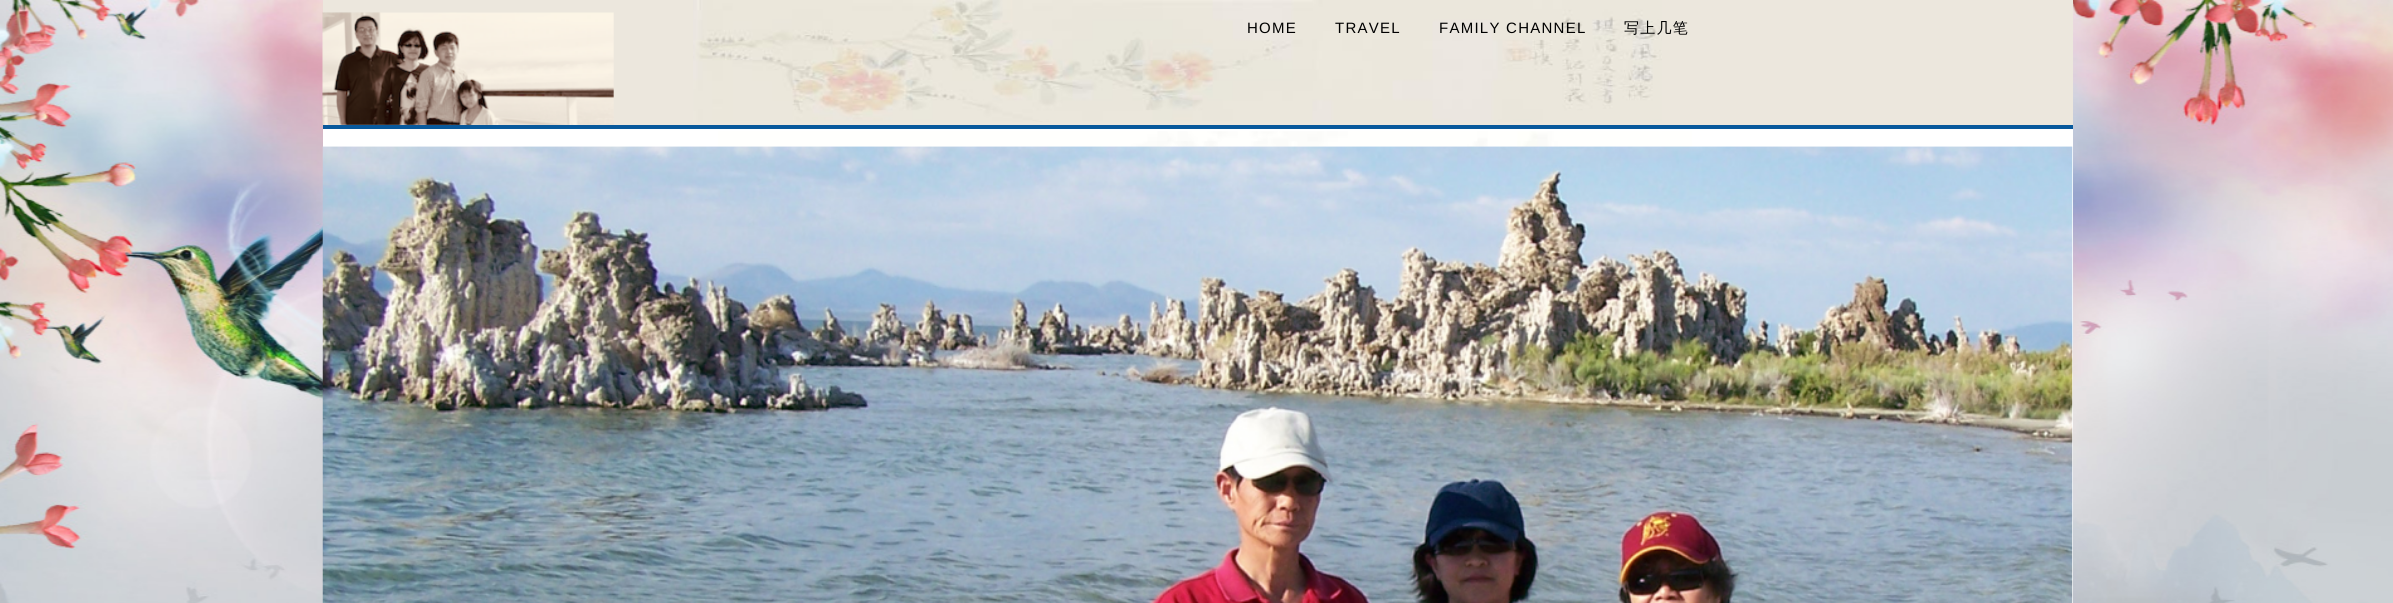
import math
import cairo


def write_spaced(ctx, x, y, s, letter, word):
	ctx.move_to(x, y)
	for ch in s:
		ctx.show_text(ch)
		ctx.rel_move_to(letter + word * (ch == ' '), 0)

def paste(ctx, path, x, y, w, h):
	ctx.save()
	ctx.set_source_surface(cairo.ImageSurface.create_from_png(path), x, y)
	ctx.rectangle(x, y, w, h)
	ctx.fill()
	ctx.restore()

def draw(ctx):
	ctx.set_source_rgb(1, 1, 1)
	ctx.paint()
	paste(ctx, 'media/1.png', 0, 0, 2393, 603)
	ctx.set_source_rgb(0.922, 0.906, 0.867)
	ctx.rectangle(323, 0, 1750, 125)
	ctx.fill()
	paste(ctx, 'media/2.png', 693, 0, 969, 122)
	ctx.set_source_rgb(0.035, 0.349, 0.612)
	ctx.rectangle(323, 125, 1750, 4)
	ctx.fill()
	paste(ctx, 'media/3.png', 322, 12, 292, 113)
	ctx.select_font_face('Liberation Sans')
	ctx.set_font_size(15)
	ctx.set_source_rgb(0, 0, 0)
	for x, y, s in [
		(1247, 33, 'HOME'),
		(1335, 33, 'TRAVEL'),
		(1439, 33, 'FAMILY CHANNEL'),
	]:
		write_spaced(ctx, x, y, s, 1.25, 0)
	ctx.select_font_face('WenQuanYi Zen Hei Medium')
	write_spaced(ctx, 1624, 33, '写上几笔', 1.25, 0)
	ctx.set_source_rgb(1, 1, 1)
	ctx.rectangle(323, 129, 1750, 474)
	ctx.fill()
	paste(ctx, 'media/4.png', 718, 131, 974, 16)
	paste(ctx, 'media/5.png', 322, 146, 1751, 457)


surface = cairo.ImageSurface(cairo.FORMAT_RGB24, 2393, 603)
ctx = cairo.Context(surface)
options = cairo.FontOptions()
options.set_hint_metrics(cairo.HINT_METRICS_OFF)
options.set_hint_style(cairo.HINT_STYLE_NONE)
ctx.set_font_options(options)
ctx.set_miter_limit(4)
draw(ctx)
surface.write_to_png('image.png')
